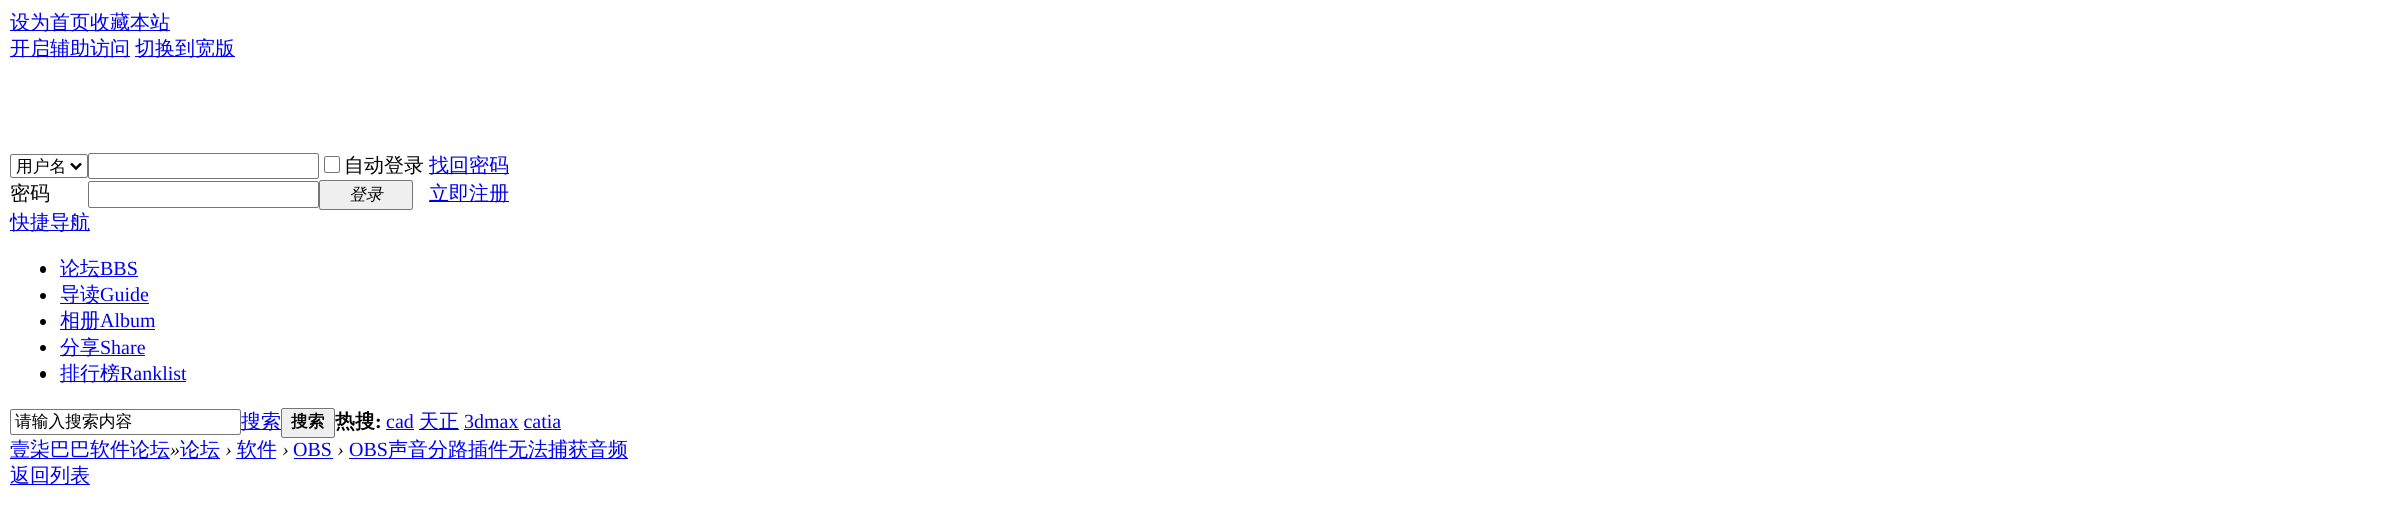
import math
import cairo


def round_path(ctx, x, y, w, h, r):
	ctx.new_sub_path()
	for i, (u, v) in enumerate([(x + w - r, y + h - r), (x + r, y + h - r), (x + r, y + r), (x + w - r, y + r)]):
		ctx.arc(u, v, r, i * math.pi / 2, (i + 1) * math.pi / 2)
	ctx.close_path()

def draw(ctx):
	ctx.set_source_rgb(1, 1, 1)
	ctx.paint()
	ctx.set_source_rgb(0, 0, 0.933)
	ctx.rectangle(10, 30, 160, 1)
	ctx.fill()
	ctx.select_font_face('WenQuanYi Zen Hei Medium')
	ctx.set_font_size(20)
	ctx.move_to(10, 29)
	ctx.show_text('设为首页收藏本站')
	ctx.rectangle(10, 56, 120, 1)
	ctx.fill()
	ctx.move_to(10, 55)
	ctx.show_text('开启辅助访问')
	ctx.rectangle(135, 56, 100, 1)
	ctx.fill()
	ctx.move_to(135, 55)
	ctx.show_text('切换到宽版')
	round_path(ctx, 10.5, 154.5, 77, 23, 2)
	ctx.set_source_rgb(0.463, 0.463, 0.463)
	ctx.set_line_width(1)
	ctx.stroke()
	ctx.new_path()
	ctx.move_to(71, 163.5)
	ctx.line_to(76, 168.5)
	ctx.line_to(81, 163.5)
	ctx.set_source_rgb(0, 0, 0)
	ctx.set_line_width(2.5)
	ctx.stroke()
	ctx.set_font_size(16.75)
	ctx.move_to(16, 172)
	ctx.show_text('用户名')
	round_path(ctx, 88.5, 153.5, 230, 25, 2)
	ctx.set_source_rgb(0.463, 0.463, 0.463)
	ctx.set_line_width(1)
	ctx.stroke()
	round_path(ctx, 324.5, 156.5, 15, 16, 2)
	ctx.stroke()
	ctx.set_font_size(20)
	ctx.set_source_rgb(0, 0, 0)
	ctx.move_to(344, 172)
	ctx.show_text('自动登录')
	ctx.set_source_rgb(0, 0, 0.933)
	ctx.rectangle(429, 173, 80, 1)
	ctx.fill()
	ctx.move_to(429, 172)
	ctx.show_text('找回密码')
	ctx.set_source_rgb(0, 0, 0)
	ctx.move_to(10, 200)
	ctx.show_text('密码')
	round_path(ctx, 88.5, 181.5, 230, 26, 2)
	ctx.set_source_rgb(0.463, 0.463, 0.463)
	ctx.stroke()
	ctx.set_source_rgb(0.937, 0.937, 0.937)
	round_path(ctx, 319.5, 180.5, 93, 29, 2)
	ctx.fill_preserve()
	ctx.set_source_rgb(0.463, 0.463, 0.463)
	ctx.stroke()
	ctx.select_font_face('WenQuanYi Zen Hei Medium', cairo.FONT_SLANT_ITALIC)
	ctx.set_font_size(16.75)
	ctx.set_source_rgb(0, 0, 0)
	ctx.move_to(349, 200)
	ctx.show_text('登录')
	ctx.set_source_rgb(0, 0, 0.933)
	ctx.rectangle(429, 201, 80, 1)
	ctx.fill()
	ctx.select_font_face('WenQuanYi Zen Hei Medium')
	ctx.set_font_size(20)
	ctx.move_to(429, 200)
	ctx.show_text('立即注册')
	ctx.rectangle(10, 230, 80, 1)
	ctx.fill()
	ctx.move_to(10, 229)
	ctx.show_text('快捷导航')
	ctx.set_source_rgb(0, 0, 0)
	round_path(ctx, 40, 266, 6, 7, 3)
	ctx.fill()
	ctx.set_source_rgb(0, 0, 0.933)
	ctx.rectangle(60, 276, 78, 1)
	ctx.fill()
	ctx.move_to(60, 275)
	ctx.show_text('论坛')
	ctx.select_font_face('Liberation Serif')
	ctx.move_to(100, 275)
	ctx.show_text('BBS')
	ctx.set_source_rgb(0, 0, 0)
	ctx.new_path()
	ctx.arc(43, 296, 3, 0, 2 * math.pi)
	ctx.fill()
	ctx.set_source_rgb(0, 0, 0.933)
	ctx.rectangle(60, 303, 89, 1)
	ctx.fill()
	ctx.select_font_face('WenQuanYi Zen Hei Medium')
	ctx.move_to(60, 301)
	ctx.show_text('导读')
	ctx.select_font_face('Liberation Serif')
	ctx.move_to(100, 301)
	ctx.show_text('Guide')
	ctx.set_source_rgb(0, 0, 0)
	ctx.new_path()
	ctx.arc(43, 322, 3, 0, 2 * math.pi)
	ctx.fill()
	ctx.set_source_rgb(0, 0, 0.933)
	ctx.rectangle(60, 329, 95, 1)
	ctx.fill()
	ctx.select_font_face('WenQuanYi Zen Hei Medium')
	ctx.move_to(60, 327)
	ctx.show_text('相册')
	ctx.select_font_face('Liberation Serif')
	ctx.move_to(100, 327)
	ctx.show_text('Album')
	ctx.set_source_rgb(0, 0, 0)
	ctx.new_path()
	ctx.arc(43, 348, 3, 0, 2 * math.pi)
	ctx.fill()
	ctx.set_source_rgb(0, 0, 0.933)
	ctx.rectangle(60, 355, 85, 1)
	ctx.fill()
	ctx.select_font_face('WenQuanYi Zen Hei Medium')
	ctx.move_to(60, 354)
	ctx.show_text('分享')
	ctx.select_font_face('Liberation Serif')
	ctx.move_to(100, 354)
	ctx.show_text('Share')
	ctx.set_source_rgb(0, 0, 0)
	round_path(ctx, 40, 371, 6, 7, 3)
	ctx.fill()
	ctx.set_source_rgb(0, 0, 0.933)
	ctx.rectangle(60, 381, 126, 1)
	ctx.fill()
	ctx.select_font_face('WenQuanYi Zen Hei Medium')
	ctx.move_to(60, 380)
	ctx.show_text('排行榜')
	ctx.select_font_face('Liberation Serif')
	ctx.move_to(120, 380)
	ctx.show_text('Ranklist')
	round_path(ctx, 10.5, 409.5, 230, 25, 2)
	ctx.set_source_rgb(0.463, 0.463, 0.463)
	ctx.stroke()
	ctx.select_font_face('WenQuanYi Zen Hei Medium')
	ctx.set_font_size(16.75)
	ctx.set_source_rgb(0, 0, 0)
	ctx.move_to(15, 427)
	ctx.show_text('请输入搜索内容')
	ctx.set_source_rgb(0, 0, 0.933)
	ctx.rectangle(241, 429, 40, 1)
	ctx.fill()
	ctx.set_font_size(20)
	ctx.move_to(241, 428)
	ctx.show_text('搜索')
	ctx.set_source_rgb(0.937, 0.937, 0.937)
	round_path(ctx, 281.5, 408.5, 53, 29, 2)
	ctx.fill_preserve()
	ctx.set_source_rgb(0.463, 0.463, 0.463)
	ctx.stroke()
	ctx.select_font_face('WenQuanYi Zen Hei', cairo.FONT_SLANT_NORMAL, cairo.FONT_WEIGHT_BOLD)
	ctx.set_font_size(16.75)
	ctx.set_source_rgb(0, 0, 0)
	ctx.move_to(291, 427)
	ctx.show_text('搜索')
	ctx.set_font_size(20)
	ctx.move_to(335, 428)
	ctx.show_text('热搜')
	ctx.select_font_face('Liberation Serif', cairo.FONT_SLANT_NORMAL, cairo.FONT_WEIGHT_BOLD)
	ctx.move_to(375, 428)
	ctx.show_text(':')
	ctx.select_font_face('Liberation Serif')
	ctx.set_source_rgb(0, 0, 0.933)
	ctx.move_to(386, 428)
	ctx.show_text('cad')
	ctx.rectangle(386, 429, 28, 1)
	ctx.fill()
	ctx.rectangle(419, 429, 40, 1)
	ctx.fill()
	ctx.select_font_face('WenQuanYi Zen Hei Medium')
	ctx.move_to(419, 428)
	ctx.show_text('天正')
	ctx.select_font_face('Liberation Serif')
	ctx.move_to(464, 428)
	ctx.show_text('3dmax catia')
	ctx.rectangle(464, 429, 55, 1)
	ctx.rectangle(524, 429, 37, 1)
	ctx.rectangle(10, 458, 160, 1)
	ctx.fill()
	ctx.select_font_face('WenQuanYi Zen Hei Medium')
	ctx.move_to(10, 456)
	ctx.show_text('壹柒巴巴软件论坛')
	ctx.select_font_face('Liberation Serif', cairo.FONT_SLANT_ITALIC)
	ctx.set_source_rgb(0, 0, 0)
	ctx.move_to(170, 456)
	ctx.show_text('»')
	ctx.set_source_rgb(0, 0, 0.933)
	ctx.rectangle(180, 458, 40, 1)
	ctx.fill()
	ctx.select_font_face('WenQuanYi Zen Hei Medium')
	ctx.move_to(180, 456)
	ctx.show_text('论坛')
	ctx.select_font_face('Liberation Serif', cairo.FONT_SLANT_ITALIC)
	ctx.set_source_rgb(0, 0, 0)
	ctx.move_to(225, 456)
	ctx.show_text('›')
	ctx.set_source_rgb(0, 0, 0.933)
	ctx.rectangle(236, 458, 40, 1)
	ctx.fill()
	ctx.select_font_face('WenQuanYi Zen Hei Medium')
	ctx.move_to(237, 456)
	ctx.show_text('软件')
	ctx.select_font_face('Liberation Serif', cairo.FONT_SLANT_ITALIC)
	ctx.set_source_rgb(0, 0, 0)
	ctx.move_to(282, 456)
	ctx.show_text('›')
	ctx.select_font_face('Liberation Serif')
	ctx.set_source_rgb(0, 0, 0.933)
	ctx.move_to(293, 456)
	ctx.show_text('OBS')
	ctx.rectangle(294, 458, 39, 1)
	ctx.fill()
	ctx.select_font_face('Liberation Serif', cairo.FONT_SLANT_ITALIC)
	ctx.set_source_rgb(0, 0, 0)
	ctx.move_to(337, 456)
	ctx.show_text('›')
	ctx.select_font_face('Liberation Serif')
	ctx.set_source_rgb(0, 0, 0.933)
	ctx.move_to(349, 456)
	ctx.show_text('OBS')
	ctx.rectangle(349, 458, 279, 1)
	ctx.fill()
	ctx.select_font_face('WenQuanYi Zen Hei Medium')
	ctx.move_to(388, 456)
	ctx.show_text('声音分路插件无法捕获音频')
	ctx.rectangle(10, 484, 80, 1)
	ctx.fill()
	ctx.move_to(10, 482)
	ctx.show_text('返回列表')


surface = cairo.ImageSurface(cairo.FORMAT_RGB24, 2407, 529)
ctx = cairo.Context(surface)
options = cairo.FontOptions()
options.set_hint_metrics(cairo.HINT_METRICS_OFF)
options.set_hint_style(cairo.HINT_STYLE_NONE)
ctx.set_font_options(options)
ctx.set_miter_limit(4)
draw(ctx)
surface.write_to_png('image.png')
